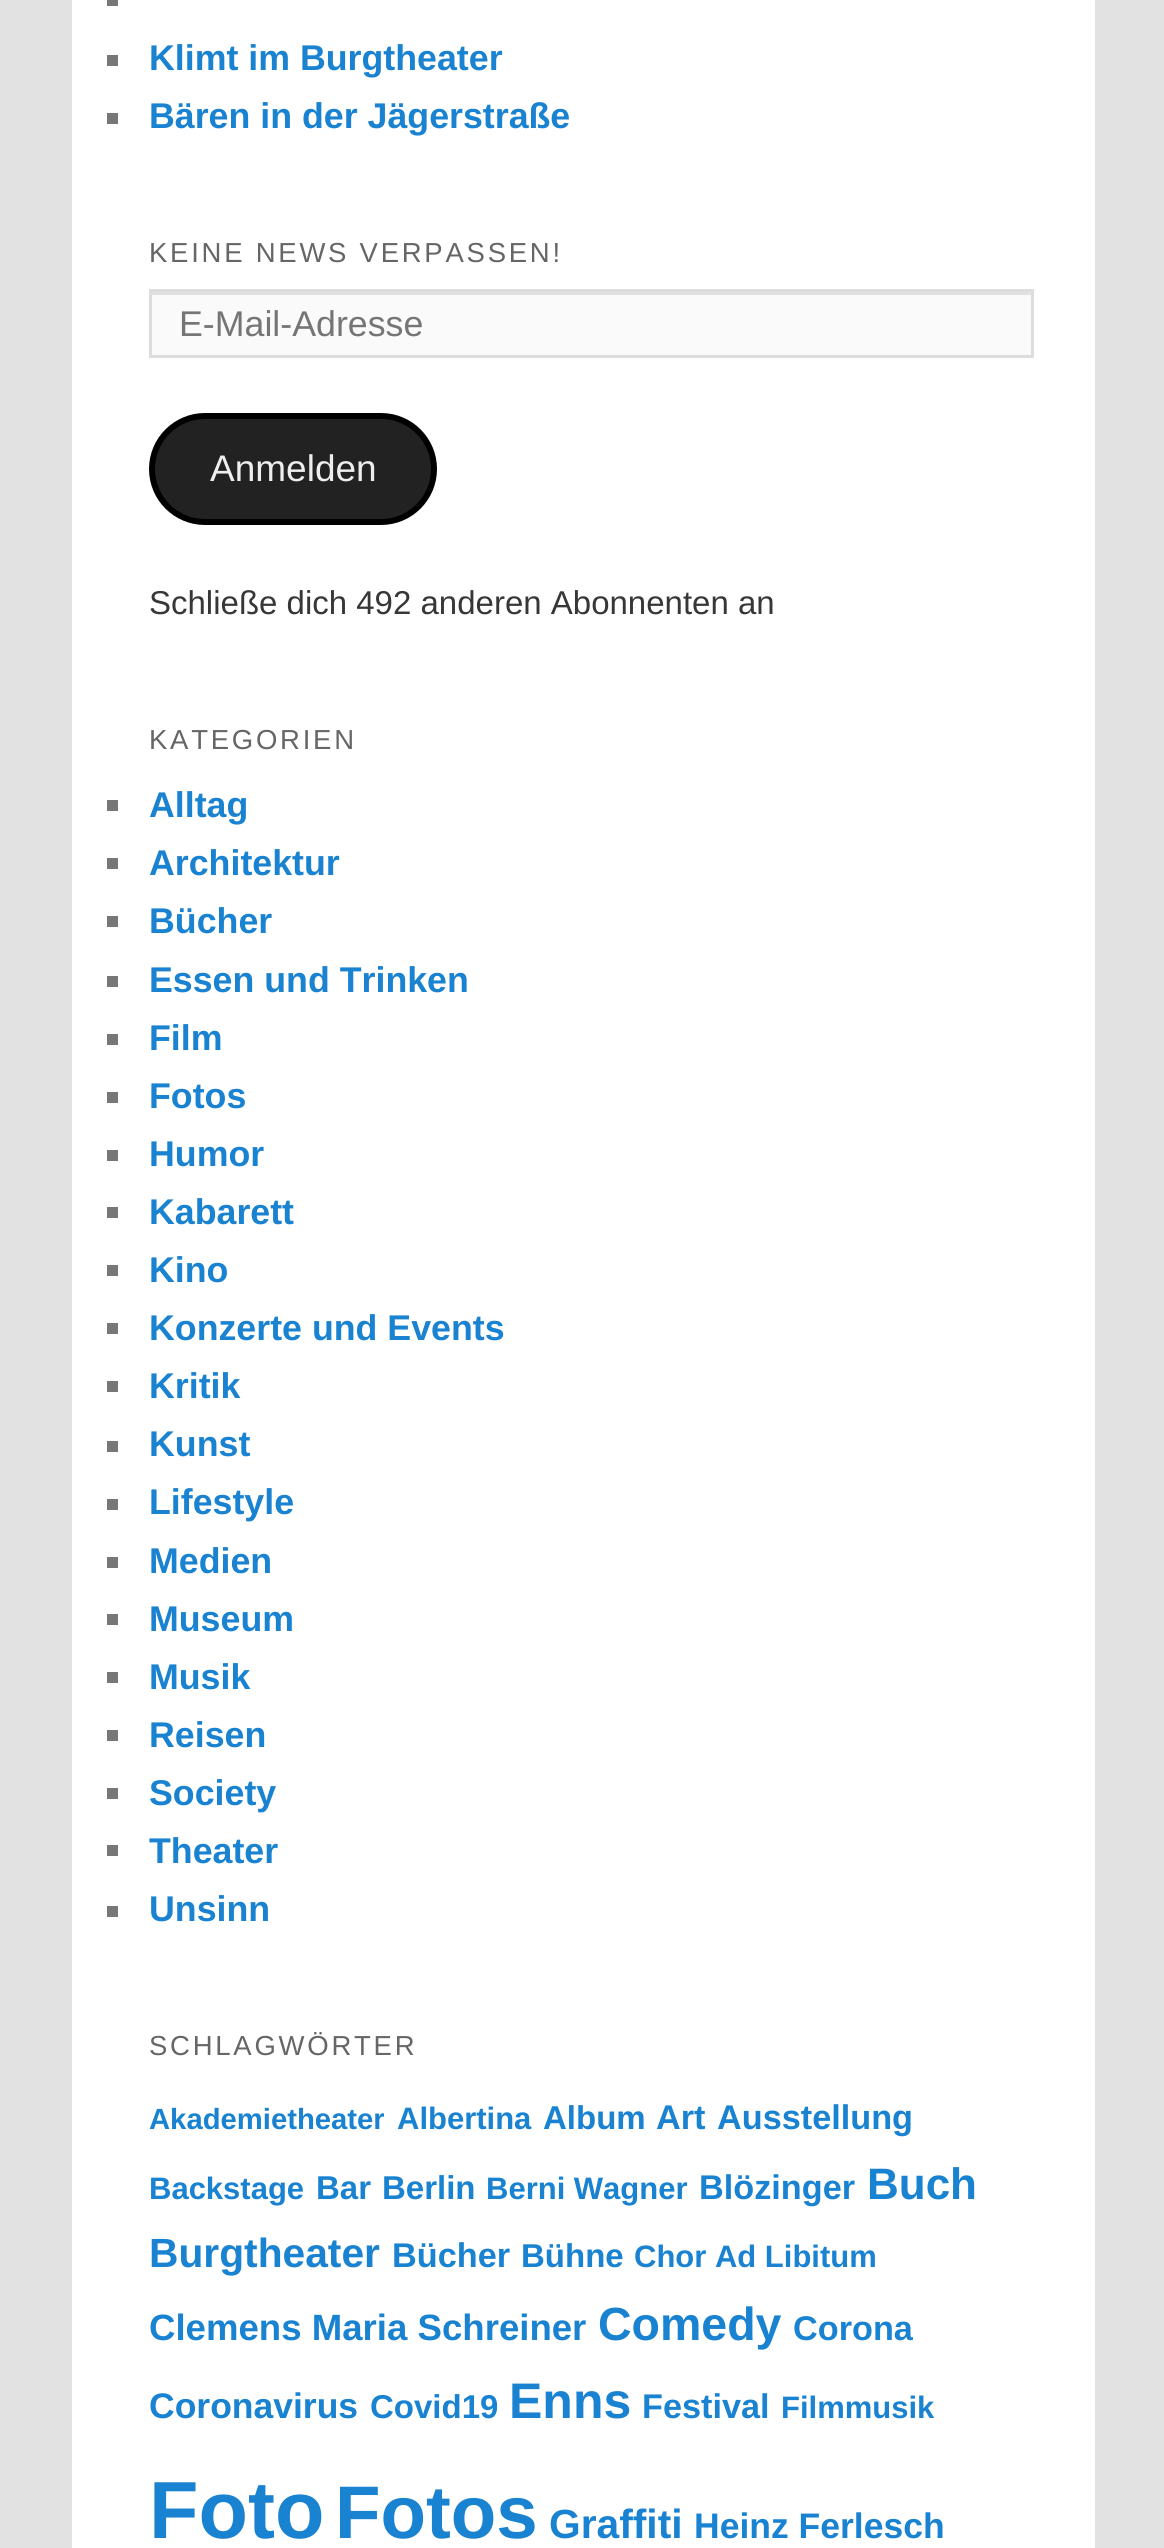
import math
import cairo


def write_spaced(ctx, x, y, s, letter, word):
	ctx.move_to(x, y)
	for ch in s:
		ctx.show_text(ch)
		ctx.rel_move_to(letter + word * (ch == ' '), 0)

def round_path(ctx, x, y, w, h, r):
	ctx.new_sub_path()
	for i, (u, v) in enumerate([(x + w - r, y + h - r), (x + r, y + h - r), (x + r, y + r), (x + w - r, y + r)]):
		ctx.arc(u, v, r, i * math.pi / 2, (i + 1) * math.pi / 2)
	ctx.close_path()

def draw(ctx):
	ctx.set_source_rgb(0.886, 0.886, 0.886)
	ctx.paint()
	ctx.set_source_rgb(1, 1, 1)
	ctx.rectangle(72, 0, 1023, 2548)
	ctx.fill()
	ctx.set_source_rgb(0.467, 0.467, 0.467)
	ctx.rectangle(107, 0, 11, 6)
	ctx.rectangle(107, 55, 11, 11)
	ctx.fill()
	ctx.select_font_face('Liberation Sans', cairo.FONT_SLANT_NORMAL, cairo.FONT_WEIGHT_BOLD)
	ctx.set_font_size(35.75)
	ctx.set_source_rgb(0.098, 0.51, 0.82)
	ctx.move_to(149, 70)
	ctx.show_text('Klimt im Burgtheater')
	ctx.set_source_rgb(0.467, 0.467, 0.467)
	ctx.rectangle(107, 113, 11, 11)
	ctx.fill()
	ctx.set_source_rgb(0.098, 0.51, 0.82)
	ctx.move_to(149, 128)
	ctx.show_text('Bären in der Jägerstraße')
	ctx.select_font_face('Liberation Sans')
	ctx.set_font_size(27.5)
	ctx.set_source_rgb(0.4, 0.4, 0.4)
	write_spaced(ctx, 149, 262, 'KEINE NEWS VERPASSEN!', 2.75, 0)
	ctx.set_source_rgb(0.98, 0.98, 0.98)
	ctx.rectangle(152, 295, 879, 60)
	ctx.fill()
	ctx.set_source_rgb(0.882, 0.882, 0.882)
	ctx.rectangle(151, 292, 880, 3)
	ctx.fill()
	ctx.rectangle(150.5, 290.5, 882, 66)
	ctx.set_source_rgb(0.867, 0.867, 0.867)
	ctx.set_line_width(3)
	ctx.stroke()
	ctx.set_font_size(35.75)
	ctx.set_source_rgb(0.459, 0.459, 0.459)
	ctx.move_to(179, 336)
	ctx.show_text('E-Mail-Adresse')
	ctx.set_source_rgb(0.133, 0.133, 0.133)
	round_path(ctx, 152, 416, 282, 106, 53)
	ctx.fill_preserve()
	ctx.set_source_rgb(0, 0, 0)
	ctx.set_line_width(6)
	ctx.stroke()
	ctx.set_font_size(37)
	ctx.set_source_rgb(0.933, 0.933, 0.933)
	ctx.move_to(210, 481)
	ctx.show_text('Anmelden')
	ctx.set_font_size(33)
	ctx.set_source_rgb(0.216, 0.216, 0.216)
	ctx.move_to(149, 614)
	ctx.show_text('Schließe dich 492 anderen Abonnenten an')
	ctx.set_font_size(27.5)
	ctx.set_source_rgb(0.4, 0.4, 0.4)
	write_spaced(ctx, 149, 749, 'KATEGORIEN', 2.75, 0)
	ctx.set_source_rgb(0.467, 0.467, 0.467)
	ctx.rectangle(107, 800, 11, 11)
	ctx.fill()
	ctx.select_font_face('Liberation Sans', cairo.FONT_SLANT_NORMAL, cairo.FONT_WEIGHT_BOLD)
	ctx.set_font_size(35.75)
	ctx.set_source_rgb(0.098, 0.51, 0.82)
	ctx.move_to(149, 817)
	ctx.show_text('Alltag')
	ctx.set_source_rgb(0.467, 0.467, 0.467)
	ctx.rectangle(107, 858, 11, 11)
	ctx.fill()
	ctx.set_source_rgb(0.098, 0.51, 0.82)
	ctx.move_to(149, 875)
	ctx.show_text('Architektur')
	ctx.set_source_rgb(0.467, 0.467, 0.467)
	ctx.rectangle(107, 916, 11, 11)
	ctx.fill()
	ctx.set_source_rgb(0.098, 0.51, 0.82)
	ctx.move_to(149, 933)
	ctx.show_text('Bücher')
	ctx.set_source_rgb(0.467, 0.467, 0.467)
	ctx.rectangle(107, 976, 11, 11)
	ctx.fill()
	ctx.set_source_rgb(0.098, 0.51, 0.82)
	ctx.move_to(149, 992)
	ctx.show_text('Essen und Trinken')
	ctx.set_source_rgb(0.467, 0.467, 0.467)
	ctx.rectangle(107, 1034, 11, 11)
	ctx.fill()
	ctx.set_source_rgb(0.098, 0.51, 0.82)
	ctx.move_to(149, 1050)
	ctx.show_text('Film')
	ctx.set_source_rgb(0.467, 0.467, 0.467)
	ctx.rectangle(107, 1092, 11, 11)
	ctx.fill()
	ctx.set_source_rgb(0.098, 0.51, 0.82)
	ctx.move_to(149, 1108)
	ctx.show_text('Fotos')
	ctx.set_source_rgb(0.467, 0.467, 0.467)
	ctx.rectangle(107, 1150, 11, 11)
	ctx.fill()
	ctx.set_source_rgb(0.098, 0.51, 0.82)
	ctx.move_to(149, 1166)
	ctx.show_text('Humor')
	ctx.set_source_rgb(0.467, 0.467, 0.467)
	ctx.rectangle(107, 1207, 11, 11)
	ctx.fill()
	ctx.set_source_rgb(0.098, 0.51, 0.82)
	ctx.move_to(149, 1224)
	ctx.show_text('Kabarett')
	ctx.set_source_rgb(0.467, 0.467, 0.467)
	ctx.rectangle(107, 1265, 11, 11)
	ctx.fill()
	ctx.set_source_rgb(0.098, 0.51, 0.82)
	ctx.move_to(149, 1282)
	ctx.show_text('Kino')
	ctx.set_source_rgb(0.467, 0.467, 0.467)
	ctx.rectangle(107, 1323, 11, 11)
	ctx.fill()
	ctx.set_source_rgb(0.098, 0.51, 0.82)
	ctx.move_to(149, 1340)
	ctx.show_text('Konzerte und Events')
	ctx.set_source_rgb(0.467, 0.467, 0.467)
	ctx.rectangle(107, 1381, 11, 11)
	ctx.fill()
	ctx.set_source_rgb(0.098, 0.51, 0.82)
	ctx.move_to(149, 1398)
	ctx.show_text('Kritik')
	ctx.set_source_rgb(0.467, 0.467, 0.467)
	ctx.rectangle(107, 1441, 11, 11)
	ctx.fill()
	ctx.set_source_rgb(0.098, 0.51, 0.82)
	ctx.move_to(149, 1456)
	ctx.show_text('Kunst')
	ctx.set_source_rgb(0.467, 0.467, 0.467)
	ctx.rectangle(107, 1499, 11, 11)
	ctx.fill()
	ctx.set_source_rgb(0.098, 0.51, 0.82)
	ctx.move_to(149, 1514)
	ctx.show_text('Lifestyle')
	ctx.set_source_rgb(0.467, 0.467, 0.467)
	ctx.rectangle(107, 1557, 11, 11)
	ctx.fill()
	ctx.set_source_rgb(0.098, 0.51, 0.82)
	ctx.move_to(149, 1573)
	ctx.show_text('Medien')
	ctx.set_source_rgb(0.467, 0.467, 0.467)
	ctx.rectangle(107, 1614, 11, 11)
	ctx.fill()
	ctx.set_source_rgb(0.098, 0.51, 0.82)
	ctx.move_to(149, 1631)
	ctx.show_text('Museum')
	ctx.set_source_rgb(0.467, 0.467, 0.467)
	ctx.rectangle(107, 1672, 11, 11)
	ctx.fill()
	ctx.set_source_rgb(0.098, 0.51, 0.82)
	ctx.move_to(149, 1689)
	ctx.show_text('Musik')
	ctx.set_source_rgb(0.467, 0.467, 0.467)
	ctx.rectangle(107, 1730, 11, 11)
	ctx.fill()
	ctx.set_source_rgb(0.098, 0.51, 0.82)
	ctx.move_to(149, 1747)
	ctx.show_text('Reisen')
	ctx.set_source_rgb(0.467, 0.467, 0.467)
	ctx.rectangle(107, 1788, 11, 11)
	ctx.fill()
	ctx.set_source_rgb(0.098, 0.51, 0.82)
	ctx.move_to(149, 1805)
	ctx.show_text('Society')
	ctx.set_source_rgb(0.467, 0.467, 0.467)
	ctx.rectangle(107, 1845, 11, 11)
	ctx.fill()
	ctx.set_source_rgb(0.098, 0.51, 0.82)
	ctx.move_to(149, 1863)
	ctx.show_text('Theater')
	ctx.set_source_rgb(0.467, 0.467, 0.467)
	ctx.rectangle(107, 1906, 11, 11)
	ctx.fill()
	ctx.set_source_rgb(0.098, 0.51, 0.82)
	ctx.move_to(149, 1921)
	ctx.show_text('Unsinn')
	ctx.select_font_face('Liberation Sans')
	ctx.set_font_size(27.5)
	ctx.set_source_rgb(0.4, 0.4, 0.4)
	write_spaced(ctx, 149, 2055, 'SCHLAGWÖRTER', 2.75, 0)
	ctx.select_font_face('Liberation Sans', cairo.FONT_SLANT_NORMAL, cairo.FONT_WEIGHT_BOLD)
	ctx.set_font_size(29.25)
	ctx.set_source_rgb(0.098, 0.51, 0.82)
	ctx.move_to(149, 2129)
	ctx.show_text('Akademietheater')
	ctx.set_font_size(31)
	ctx.move_to(397, 2129)
	ctx.show_text('Albertina')
	ctx.set_font_size(33)
	ctx.move_to(543, 2129)
	ctx.show_text('Album')
	ctx.set_font_size(34.25)
	ctx.move_to(656, 2129)
	ctx.show_text('Art')
	ctx.move_to(717, 2129)
	ctx.show_text('Ausstellung')
	ctx.set_font_size(31)
	ctx.move_to(149, 2199)
	ctx.show_text('Backstage')
	ctx.set_font_size(33)
	ctx.move_to(316, 2199)
	ctx.show_text('Bar')
	ctx.move_to(382, 2199)
	ctx.show_text('Berlin')
	ctx.set_font_size(31)
	ctx.move_to(486, 2199)
	ctx.show_text('Berni Wagner')
	ctx.set_font_size(34.25)
	ctx.move_to(699, 2199)
	ctx.show_text('Blözinger')
	ctx.set_font_size(44)
	ctx.move_to(867, 2199)
	ctx.show_text('Buch')
	ctx.set_font_size(40.75)
	ctx.move_to(149, 2267)
	ctx.show_text('Burgtheater')
	ctx.set_font_size(34.25)
	ctx.move_to(392, 2267)
	ctx.show_text('Bücher')
	ctx.set_font_size(33)
	ctx.move_to(521, 2267)
	ctx.show_text('Bühne')
	ctx.set_font_size(31)
	ctx.move_to(634, 2267)
	ctx.show_text('Chor Ad Libitum')
	ctx.set_font_size(36.6)
	ctx.move_to(149, 2340)
	ctx.show_text('Clemens Maria Schreiner')
	ctx.set_font_size(46.5)
	ctx.move_to(598, 2340)
	ctx.show_text('Comedy')
	ctx.set_font_size(34.25)
	ctx.move_to(793, 2340)
	ctx.show_text('Corona')
	ctx.set_font_size(35.5)
	ctx.move_to(149, 2418)
	ctx.show_text('Coronavirus')
	ctx.set_font_size(33)
	ctx.move_to(370, 2418)
	ctx.show_text('Covid19')
	ctx.set_font_size(50)
	ctx.move_to(509, 2418)
	ctx.show_text('Enns')
	ctx.set_font_size(34.25)
	ctx.move_to(642, 2418)
	ctx.show_text('Festival')
	ctx.set_font_size(31)
	ctx.move_to(781, 2418)
	ctx.show_text('Filmmusik')
	ctx.set_font_size(81)
	ctx.move_to(149, 2538)
	ctx.show_text('Foto')
	ctx.set_font_size(74.5)
	ctx.move_to(335, 2538)
	ctx.show_text('Fotos')
	ctx.set_font_size(40.75)
	ctx.move_to(549, 2538)
	ctx.show_text('Graffiti')
	ctx.set_font_size(35.5)
	ctx.move_to(694, 2538)
	ctx.show_text('Heinz Ferlesch')


surface = cairo.ImageSurface(cairo.FORMAT_RGB24, 1164, 2548)
ctx = cairo.Context(surface)
options = cairo.FontOptions()
options.set_hint_metrics(cairo.HINT_METRICS_OFF)
options.set_hint_style(cairo.HINT_STYLE_NONE)
ctx.set_font_options(options)
ctx.set_miter_limit(4)
draw(ctx)
surface.write_to_png('image.png')
